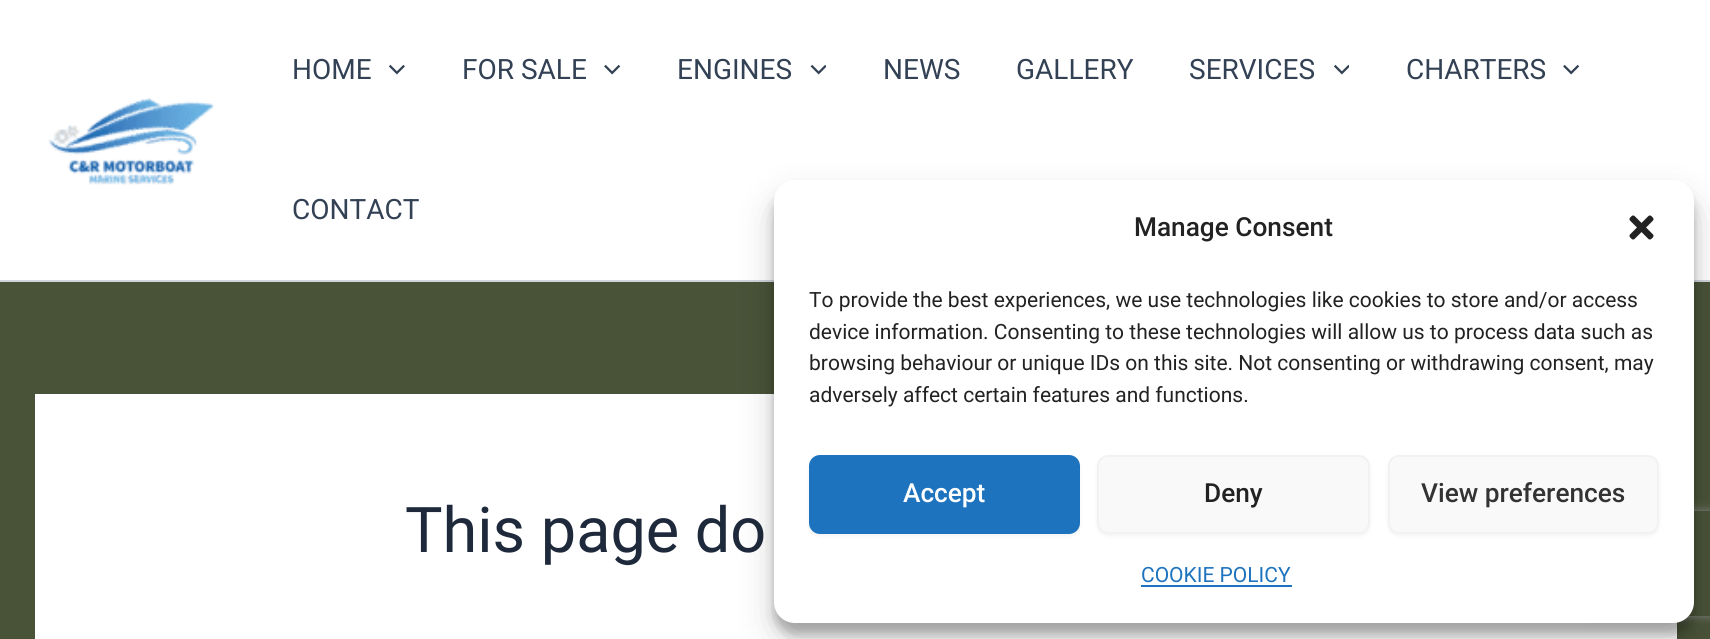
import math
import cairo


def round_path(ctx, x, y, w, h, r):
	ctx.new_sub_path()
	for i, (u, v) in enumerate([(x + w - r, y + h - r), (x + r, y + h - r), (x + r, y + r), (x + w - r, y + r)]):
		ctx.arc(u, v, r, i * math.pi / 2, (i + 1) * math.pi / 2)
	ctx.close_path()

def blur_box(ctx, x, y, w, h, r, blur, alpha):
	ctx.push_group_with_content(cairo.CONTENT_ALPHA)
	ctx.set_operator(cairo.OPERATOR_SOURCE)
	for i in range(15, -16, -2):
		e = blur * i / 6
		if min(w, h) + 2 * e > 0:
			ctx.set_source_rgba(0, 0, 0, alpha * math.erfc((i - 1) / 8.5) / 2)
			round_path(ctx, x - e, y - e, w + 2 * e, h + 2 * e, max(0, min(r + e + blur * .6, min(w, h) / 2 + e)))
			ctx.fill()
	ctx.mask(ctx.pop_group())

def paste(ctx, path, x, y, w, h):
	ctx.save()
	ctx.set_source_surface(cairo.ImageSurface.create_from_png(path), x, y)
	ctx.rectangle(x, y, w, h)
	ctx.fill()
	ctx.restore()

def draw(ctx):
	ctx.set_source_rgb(0.286, 0.325, 0.22)
	ctx.paint()
	ctx.set_source_rgb(1, 1, 1)
	ctx.rectangle(0, 0, 1710, 280)
	ctx.fill()
	ctx.set_source_rgb(0.82, 0.835, 0.859)
	ctx.rectangle(0, 280, 1710, 2)
	ctx.fill()
	paste(ctx, 'media/1.png', 48, 97, 166, 88)
	ctx.select_font_face('Roboto')
	ctx.set_font_size(28)
	ctx.set_source_rgb(0.2, 0.255, 0.333)
	ctx.move_to(292, 79)
	ctx.show_text('HOME')
	paste(ctx, 'media/2.png', 389, 64, 16, 11)
	ctx.move_to(462, 79)
	ctx.show_text('FOR SALE')
	paste(ctx, 'media/3.png', 604, 64, 17, 11)
	ctx.move_to(677, 79)
	ctx.show_text('ENGINES')
	paste(ctx, 'media/4.png', 810, 64, 16, 11)
	for x, y, s in [
		(883, 79, 'NEWS'),
		(1016, 79, 'GALLERY'),
		(1189, 79, 'SERVICES'),
	]:
		ctx.move_to(x, y)
		ctx.show_text(s)
	paste(ctx, 'media/5.png', 1334, 64, 15, 11)
	ctx.move_to(1406, 79)
	ctx.show_text('CHARTERS')
	paste(ctx, 'media/3.png', 1563, 64, 17, 11)
	ctx.move_to(292, 219)
	ctx.show_text('CONTACT')
	ctx.set_source_rgb(1, 1, 1)
	ctx.rectangle(35, 394, 1642, 245)
	ctx.fill()
	ctx.set_font_size(63)
	ctx.set_source_rgb(0.118, 0.161, 0.231)
	ctx.move_to(405, 552)
	ctx.show_text('This page do')
	ctx.set_source_rgb(0, 0, 0)
	blur_box(ctx, 774, 191, 920, 443, 21, 5, 0.23)
	blur_box(ctx, 774, 198, 920, 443, 21, 17.5, 0.19)
	ctx.save()
	ctx.set_fill_rule(cairo.FILL_RULE_EVEN_ODD)
	ctx.new_path()
	ctx.move_to(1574, 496)
	ctx.line_to(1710, 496)
	ctx.line_to(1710, 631)
	ctx.line_to(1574, 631)
	ctx.close_path()
	ctx.move_to(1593, 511)
	ctx.line_to(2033, 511)
	ctx.curve_to(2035, 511, 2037, 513, 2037, 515)
	ctx.line_to(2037, 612)
	ctx.curve_to(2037, 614, 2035, 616, 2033, 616)
	ctx.line_to(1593, 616)
	ctx.curve_to(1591, 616, 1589, 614, 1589, 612)
	ctx.line_to(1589, 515)
	ctx.curve_to(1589, 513, 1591, 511, 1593, 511)
	ctx.close_path()
	ctx.clip()
	ctx.set_source_rgb(0.502, 0.502, 0.502)
	blur_box(ctx, 1589, 511, 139, 105, 4, 4.5, 1)
	ctx.restore()
	ctx.set_source_rgb(1, 1, 1)
	round_path(ctx, 774, 180, 920, 443, 21)
	ctx.fill()
	ctx.select_font_face('Roboto Medium')
	ctx.set_font_size(26.25)
	ctx.set_source_rgb(0.133, 0.133, 0.133)
	ctx.move_to(1134, 236)
	ctx.show_text('Manage Consent')
	paste(ctx, 'media/6.png', 1629, 215, 25, 25)
	ctx.select_font_face('Roboto')
	ctx.set_font_size(21)
	for x, y, s in [
		(809, 307, 'To provide the best experiences, we use technologies like cookies to store and/or access'),
		(809, 339, 'device information. Consenting to these technologies will allow us to process data such as'),
		(809, 370, 'browsing behaviour or unique IDs on this site. Not consenting or withdrawing consent, may'),
		(809, 402, 'adversely affect certain features and functions.'),
	]:
		ctx.move_to(x, y)
		ctx.show_text(s)
	ctx.set_source_rgb(0, 0, 0)
	blur_box(ctx, 809, 457, 271, 79, 11, 2, 0.05)
	ctx.set_source_rgb(0.118, 0.451, 0.745)
	round_path(ctx, 810, 456, 269, 77, 10)
	ctx.fill_preserve()
	ctx.stroke()
	ctx.select_font_face('Roboto Medium')
	ctx.set_font_size(26.25)
	ctx.set_source_rgb(1, 1, 1)
	ctx.move_to(903, 502)
	ctx.show_text('Accept')
	ctx.set_source_rgb(0, 0, 0)
	blur_box(ctx, 1097, 457, 273, 79, 11, 2, 0.05)
	ctx.set_source_rgb(0.976, 0.976, 0.976)
	round_path(ctx, 1098, 456, 271, 77, 10)
	ctx.fill_preserve()
	ctx.set_source_rgb(0.949, 0.949, 0.949)
	ctx.stroke()
	ctx.set_source_rgb(0.133, 0.133, 0.133)
	ctx.move_to(1204, 502)
	ctx.show_text('Deny')
	ctx.set_source_rgb(0, 0, 0)
	blur_box(ctx, 1388, 457, 271, 79, 11, 2, 0.05)
	ctx.set_source_rgb(0.976, 0.976, 0.976)
	round_path(ctx, 1389, 456, 269, 77, 10)
	ctx.fill_preserve()
	ctx.set_source_rgb(0.949, 0.949, 0.949)
	ctx.stroke()
	ctx.set_source_rgb(0.2, 0.2, 0.2)
	ctx.move_to(1421, 502)
	ctx.show_text('View preferences')
	ctx.select_font_face('Roboto')
	ctx.set_font_size(21)
	ctx.set_source_rgb(0.118, 0.451, 0.745)
	ctx.move_to(1141, 582)
	ctx.show_text('COOKIE POLICY')
	ctx.rectangle(1141, 585, 151, 2)
	ctx.fill()


surface = cairo.ImageSurface(cairo.FORMAT_RGB24, 1710, 639)
ctx = cairo.Context(surface)
options = cairo.FontOptions()
options.set_hint_metrics(cairo.HINT_METRICS_OFF)
options.set_hint_style(cairo.HINT_STYLE_NONE)
ctx.set_font_options(options)
ctx.set_miter_limit(4)
draw(ctx)
surface.write_to_png('image.png')
